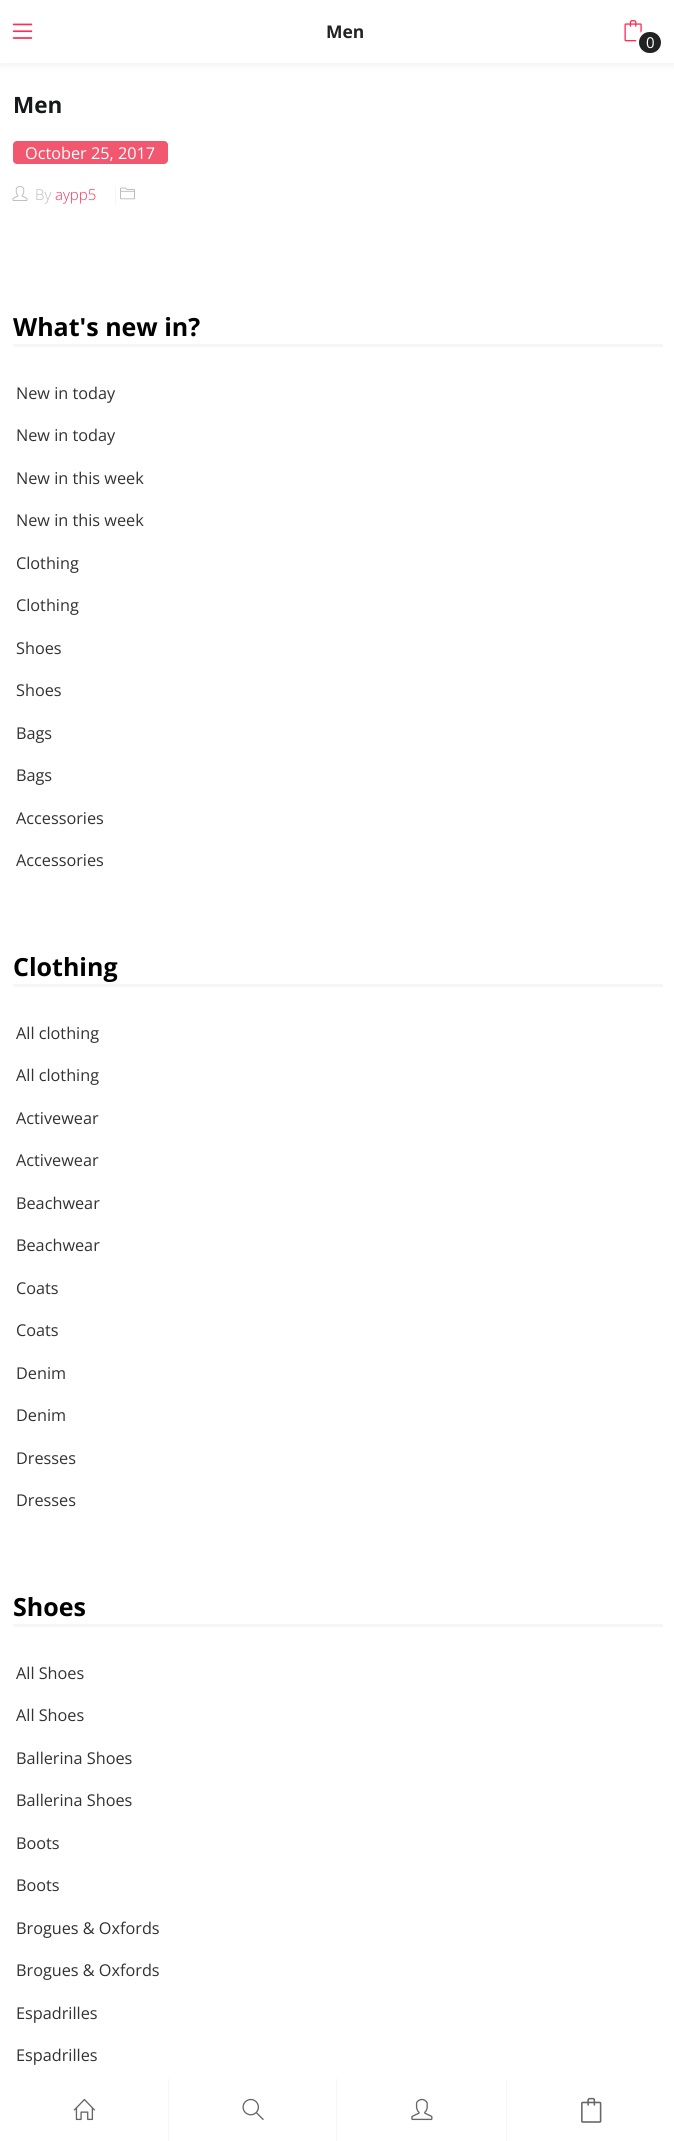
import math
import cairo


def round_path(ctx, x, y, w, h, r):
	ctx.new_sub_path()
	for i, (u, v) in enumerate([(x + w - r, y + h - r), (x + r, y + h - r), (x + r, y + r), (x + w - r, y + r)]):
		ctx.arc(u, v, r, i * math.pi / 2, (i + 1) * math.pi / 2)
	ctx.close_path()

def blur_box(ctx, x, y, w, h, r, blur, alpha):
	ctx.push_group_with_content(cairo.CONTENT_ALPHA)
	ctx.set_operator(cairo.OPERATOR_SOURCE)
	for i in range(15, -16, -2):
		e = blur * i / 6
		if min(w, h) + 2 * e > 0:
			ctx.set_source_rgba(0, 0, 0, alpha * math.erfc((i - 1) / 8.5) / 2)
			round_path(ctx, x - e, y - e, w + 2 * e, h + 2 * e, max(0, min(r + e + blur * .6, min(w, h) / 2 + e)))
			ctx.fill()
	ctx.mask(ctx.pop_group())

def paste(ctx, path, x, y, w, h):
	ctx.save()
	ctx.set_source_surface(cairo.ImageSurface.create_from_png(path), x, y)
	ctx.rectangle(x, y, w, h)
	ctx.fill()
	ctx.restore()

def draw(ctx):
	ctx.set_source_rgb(1, 1, 1)
	ctx.paint()
	ctx.set_source_rgb(0, 0, 0)
	blur_box(ctx, 0, 3, 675, 62, 0, 4, 0.06)
	ctx.set_source_rgb(1, 1, 1)
	ctx.rectangle(0, 0, 674, 63)
	ctx.fill()
	paste(ctx, 'media/1.png', 12, 23, 21, 16)
	ctx.select_font_face('Open Sans', cairo.FONT_SLANT_NORMAL, cairo.FONT_WEIGHT_BOLD)
	ctx.set_font_size(17.5)
	ctx.set_source_rgb(0.137, 0.137, 0.137)
	ctx.move_to(326, 38)
	ctx.show_text('Men')
	paste(ctx, 'media/2.png', 624, 20, 18, 22)
	ctx.set_source_rgb(0.133, 0.133, 0.133)
	round_path(ctx, 637.5, 30.5, 25, 24, 12)
	ctx.fill_preserve()
	ctx.set_source_rgb(1, 1, 1)
	ctx.set_line_width(3)
	ctx.stroke()
	ctx.select_font_face('Open Sans')
	ctx.set_font_size(15)
	ctx.move_to(646, 48)
	ctx.show_text('0')
	ctx.select_font_face('Open Sans', cairo.FONT_SLANT_NORMAL, cairo.FONT_WEIGHT_BOLD)
	ctx.set_font_size(22.5)
	ctx.set_source_rgb(0.09, 0.094, 0.102)
	ctx.move_to(13, 113)
	ctx.show_text('Men')
	ctx.set_source_rgb(0.945, 0.341, 0.435)
	round_path(ctx, 13, 141, 155, 23, 4)
	ctx.fill()
	ctx.select_font_face('Open Sans')
	ctx.set_font_size(16.25)
	ctx.set_source_rgb(1, 1, 1)
	ctx.move_to(25, 159)
	ctx.show_text('October 25, 2017')
	ctx.set_source_rgb(0.961, 0.961, 0.961)
	ctx.rectangle(115, 186, 1, 18)
	ctx.fill()
	paste(ctx, 'media/3.png', 12, 186, 16, 15)
	ctx.select_font_face('Open Sans Light')
	ctx.set_font_size(15)
	ctx.set_source_rgb(0.733, 0.733, 0.733)
	ctx.move_to(35, 200)
	ctx.show_text('By')
	ctx.set_source_rgb(1, 0.176, 0.333)
	ctx.move_to(55, 200)
	ctx.show_text('aypp5')
	paste(ctx, 'media/4.png', 120, 187, 15, 13)
	ctx.set_source_rgb(0.961, 0.961, 0.961)
	ctx.rectangle(13, 344, 650, 3)
	ctx.fill()
	ctx.select_font_face('Open Sans', cairo.FONT_SLANT_NORMAL, cairo.FONT_WEIGHT_BOLD)
	ctx.set_font_size(25)
	ctx.set_source_rgb(0, 0, 0)
	ctx.move_to(13, 336)
	ctx.show_text('What\'s new in?')
	ctx.select_font_face('Open Sans')
	ctx.set_font_size(16.25)
	ctx.set_source_rgb(0.196, 0.196, 0.196)
	for x, y, s in [
		(16, 399, 'New in today'),
		(16, 441, 'New in today'),
		(16, 484, 'New in this week'),
		(16, 526, 'New in this week'),
		(16, 569, 'Clothing'),
		(16, 611, 'Clothing'),
		(16, 654, 'Shoes'),
		(16, 696, 'Shoes'),
		(16, 739, 'Bags'),
		(16, 781, 'Bags'),
		(16, 824, 'Accessories'),
		(16, 866, 'Accessories'),
	]:
		ctx.move_to(x, y)
		ctx.show_text(s)
	ctx.set_source_rgb(0.961, 0.961, 0.961)
	ctx.rectangle(13, 984, 650, 3)
	ctx.fill()
	ctx.select_font_face('Open Sans', cairo.FONT_SLANT_NORMAL, cairo.FONT_WEIGHT_BOLD)
	ctx.set_font_size(25)
	ctx.set_source_rgb(0, 0, 0)
	ctx.move_to(13, 976)
	ctx.show_text('Clothing')
	ctx.select_font_face('Open Sans')
	ctx.set_font_size(16.25)
	ctx.set_source_rgb(0.196, 0.196, 0.196)
	for x, y, s in [
		(16, 1039, 'All clothing'),
		(16, 1081, 'All clothing'),
		(16, 1124, 'Activewear'),
		(16, 1166, 'Activewear'),
		(16, 1209, 'Beachwear'),
		(16, 1251, 'Beachwear'),
		(16, 1294, 'Coats'),
		(16, 1336, 'Coats'),
		(16, 1379, 'Denim'),
		(16, 1421, 'Denim'),
		(16, 1464, 'Dresses'),
		(16, 1506, 'Dresses'),
	]:
		ctx.move_to(x, y)
		ctx.show_text(s)
	ctx.set_source_rgb(0.961, 0.961, 0.961)
	ctx.rectangle(13, 1624, 650, 3)
	ctx.fill()
	ctx.select_font_face('Open Sans', cairo.FONT_SLANT_NORMAL, cairo.FONT_WEIGHT_BOLD)
	ctx.set_font_size(25)
	ctx.set_source_rgb(0, 0, 0)
	ctx.move_to(13, 1616)
	ctx.show_text('Shoes')
	ctx.select_font_face('Open Sans')
	ctx.set_font_size(16.25)
	ctx.set_source_rgb(0.196, 0.196, 0.196)
	for x, y, s in [
		(16, 1679, 'All Shoes'),
		(16, 1721, 'All Shoes'),
		(16, 1764, 'Ballerina Shoes'),
		(16, 1806, 'Ballerina Shoes'),
		(16, 1849, 'Boots'),
		(16, 1891, 'Boots'),
		(16, 1934, 'Brogues & Oxfords'),
		(16, 1976, 'Brogues & Oxfords'),
		(16, 2019, 'Espadrilles'),
		(16, 2061, 'Espadrilles'),
	]:
		ctx.move_to(x, y)
		ctx.show_text(s)
	ctx.set_source_rgb(0.961, 0.961, 0.961)
	ctx.rectangle(168, 2079, 1, 62)
	ctx.fill()
	paste(ctx, 'media/5.png', 73, 2098, 22, 23)
	ctx.rectangle(336, 2079, 1, 62)
	ctx.fill()
	paste(ctx, 'media/6.png', 242, 2098, 22, 22)
	ctx.rectangle(506, 2079, 1, 62)
	ctx.fill()
	paste(ctx, 'media/7.png', 411, 2098, 22, 23)
	paste(ctx, 'media/8.png', 581, 2097, 21, 26)


surface = cairo.ImageSurface(cairo.FORMAT_RGB24, 674, 2141)
ctx = cairo.Context(surface)
options = cairo.FontOptions()
options.set_hint_metrics(cairo.HINT_METRICS_OFF)
options.set_hint_style(cairo.HINT_STYLE_NONE)
ctx.set_font_options(options)
ctx.set_miter_limit(4)
draw(ctx)
surface.write_to_png('image.png')
